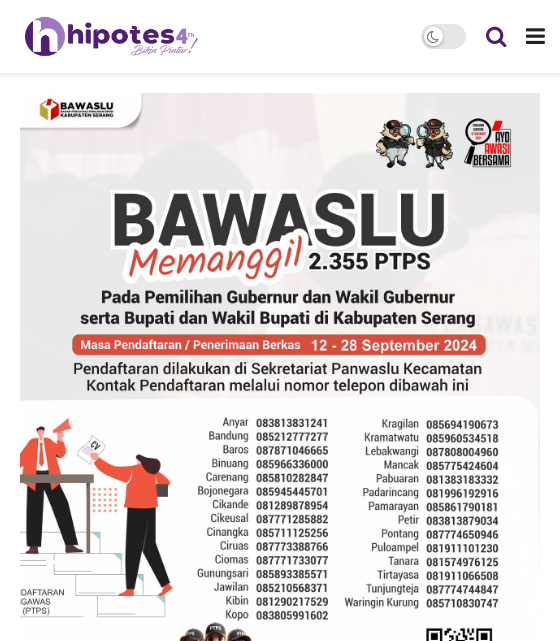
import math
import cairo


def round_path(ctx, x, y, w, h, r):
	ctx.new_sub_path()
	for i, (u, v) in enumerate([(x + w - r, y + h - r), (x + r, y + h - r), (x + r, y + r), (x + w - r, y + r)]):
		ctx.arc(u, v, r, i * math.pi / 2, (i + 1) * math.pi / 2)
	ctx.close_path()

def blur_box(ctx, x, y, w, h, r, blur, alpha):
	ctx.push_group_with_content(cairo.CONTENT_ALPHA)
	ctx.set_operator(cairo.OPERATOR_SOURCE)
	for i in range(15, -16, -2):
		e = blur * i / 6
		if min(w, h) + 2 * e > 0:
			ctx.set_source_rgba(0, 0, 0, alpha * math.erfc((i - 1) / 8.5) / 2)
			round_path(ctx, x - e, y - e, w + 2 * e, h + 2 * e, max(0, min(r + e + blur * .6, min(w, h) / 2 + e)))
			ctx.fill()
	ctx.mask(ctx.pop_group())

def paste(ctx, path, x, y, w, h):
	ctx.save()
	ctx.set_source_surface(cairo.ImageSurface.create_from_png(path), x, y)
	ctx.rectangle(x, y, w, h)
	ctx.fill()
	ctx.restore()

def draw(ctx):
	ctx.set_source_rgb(1, 1, 1)
	ctx.paint()
	ctx.save()
	ctx.rectangle(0, 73, 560, 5)
	ctx.clip()
	ctx.set_source_rgb(0, 0, 0)
	blur_box(ctx, 0, 2, 560, 73, 0, 3, 0.1)
	ctx.restore()
	paste(ctx, 'media/1.png', 25, 16, 173, 41)
	ctx.set_source_rgb(0.902, 0.902, 0.902)
	round_path(ctx, 421, 24, 45, 25, 12.5)
	ctx.fill()
	ctx.set_source_rgb(0, 0, 0)
	blur_box(ctx, 424, 28, 19, 19, 9.5, 1.5, 0.3)
	ctx.set_source_rgb(1, 1, 1)
	ctx.arc(433.5, 36.5, 9.5, 0, 2 * math.pi)
	ctx.fill()
	paste(ctx, 'media/2.png', 427, 31, 12, 12)
	paste(ctx, 'media/3.png', 486, 26, 21, 22)
	paste(ctx, 'media/4.png', 526, 28, 19, 16)
	paste(ctx, 'media/5.png', 20, 93, 520, 548)


surface = cairo.ImageSurface(cairo.FORMAT_RGB24, 560, 641)
ctx = cairo.Context(surface)
options = cairo.FontOptions()
options.set_hint_metrics(cairo.HINT_METRICS_OFF)
options.set_hint_style(cairo.HINT_STYLE_NONE)
ctx.set_font_options(options)
ctx.set_miter_limit(4)
draw(ctx)
surface.write_to_png('image.png')
